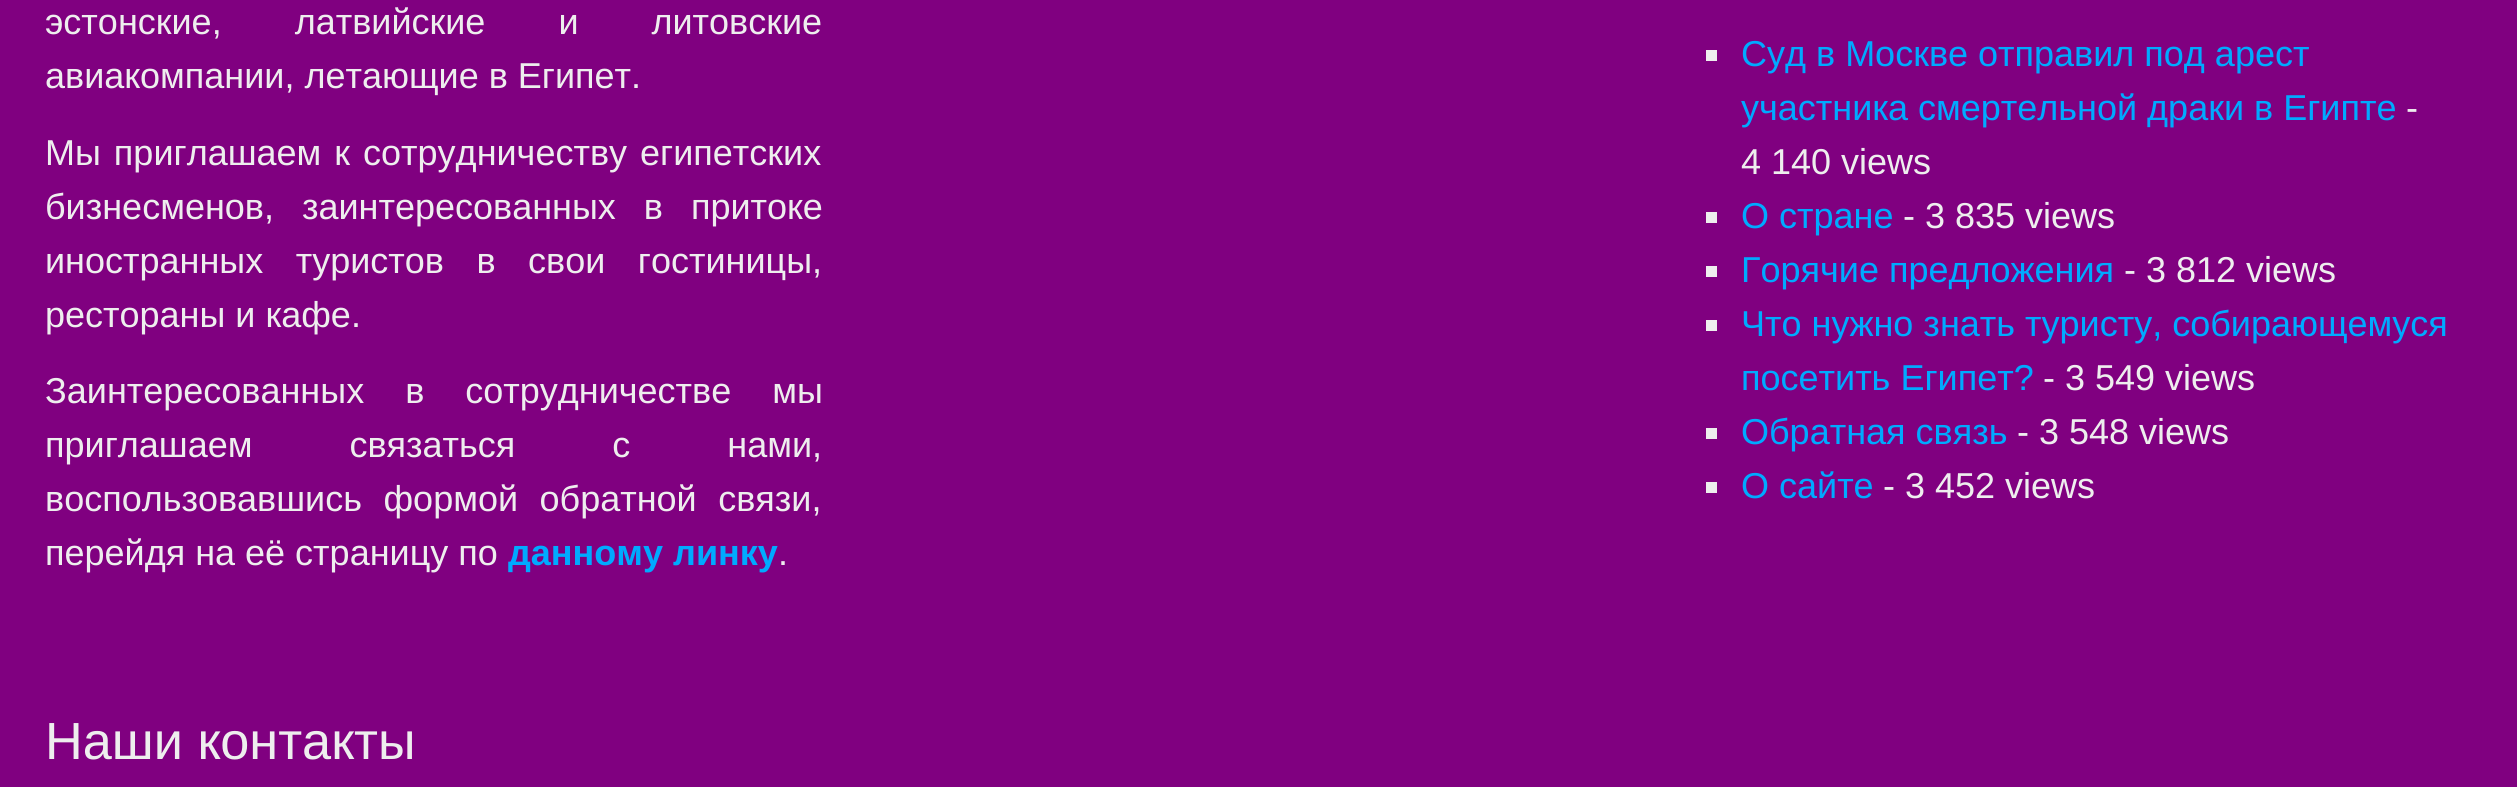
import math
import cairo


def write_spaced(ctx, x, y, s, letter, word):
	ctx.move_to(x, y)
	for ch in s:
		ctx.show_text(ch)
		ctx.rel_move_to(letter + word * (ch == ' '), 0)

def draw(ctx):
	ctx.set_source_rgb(0.502, 0, 0.502)
	ctx.paint()
	ctx.select_font_face('Liberation Sans')
	ctx.set_font_size(36)
	ctx.set_source_rgb(0.933, 0.933, 0.933)
	write_spaced(ctx, 45, 34, 'эстонские, латвийские и литовские', 0, 63)
	ctx.move_to(45, 88)
	ctx.show_text('авиакомпании, летающие в Египет.')
	write_spaced(ctx, 45, 165, 'Мы приглашаем к сотрудничеству египетских', 0, 3)
	write_spaced(ctx, 45, 219, 'бизнесменов, заинтересованных в притоке', 0, 18)
	write_spaced(ctx, 45, 273, 'иностранных туристов в свои гостиницы,', 0, 22.5)
	ctx.move_to(45, 327)
	ctx.show_text('рестораны и кафе.')
	write_spaced(ctx, 45, 403, 'Заинтересованных в сотрудничестве мы', 0, 31)
	write_spaced(ctx, 45, 457, 'приглашаем связаться с нами,', 0, 87)
	write_spaced(ctx, 45, 511, 'воспользовавшись формой обратной связи,', 0, 11.5)
	ctx.move_to(45, 565)
	ctx.show_text('перейдя на её страницу по')
	ctx.select_font_face('Liberation Sans', cairo.FONT_SLANT_NORMAL, cairo.FONT_WEIGHT_BOLD)
	ctx.set_source_rgb(0, 0.667, 1)
	ctx.move_to(508, 565)
	ctx.show_text('данному линку')
	ctx.select_font_face('Liberation Sans')
	ctx.set_source_rgb(0.933, 0.933, 0.933)
	ctx.move_to(778, 565)
	ctx.show_text('.')
	ctx.set_font_size(52.25)
	ctx.move_to(45, 759)
	ctx.show_text('Наши контакты')
	ctx.rectangle(1706, 50, 11, 11)
	ctx.fill()
	ctx.set_font_size(36)
	ctx.set_source_rgb(0, 0.667, 1)
	ctx.move_to(1741, 66)
	ctx.show_text('Суд в Москве отправил под арест')
	ctx.move_to(1741, 120)
	ctx.show_text('участника смертельной драки в Египте')
	ctx.set_source_rgb(0.933, 0.933, 0.933)
	ctx.move_to(2406, 120)
	ctx.show_text('-')
	ctx.move_to(1741, 174)
	ctx.show_text('4 140 views')
	ctx.rectangle(1706, 212, 11, 11)
	ctx.fill()
	ctx.set_source_rgb(0, 0.667, 1)
	ctx.move_to(1741, 228)
	ctx.show_text('О стране')
	ctx.set_source_rgb(0.933, 0.933, 0.933)
	ctx.move_to(1903, 228)
	ctx.show_text('- 3 835 views')
	ctx.rectangle(1706, 266, 11, 11)
	ctx.fill()
	ctx.set_source_rgb(0, 0.667, 1)
	ctx.move_to(1741, 282)
	ctx.show_text('Горячие предложения')
	ctx.set_source_rgb(0.933, 0.933, 0.933)
	ctx.move_to(2124, 282)
	ctx.show_text('- 3 812 views')
	ctx.rectangle(1706, 320, 11, 11)
	ctx.fill()
	ctx.set_source_rgb(0, 0.667, 1)
	ctx.move_to(1741, 336)
	ctx.show_text('Что нужно знать туристу, собирающемуся')
	ctx.move_to(1741, 390)
	ctx.show_text('посетить Египет?')
	ctx.set_source_rgb(0.933, 0.933, 0.933)
	ctx.move_to(2043, 390)
	ctx.show_text('- 3 549 views')
	ctx.rectangle(1706, 428, 11, 11)
	ctx.fill()
	ctx.set_source_rgb(0, 0.667, 1)
	ctx.move_to(1741, 444)
	ctx.show_text('Обратная связь')
	ctx.set_source_rgb(0.933, 0.933, 0.933)
	ctx.move_to(2017, 444)
	ctx.show_text('- 3 548 views')
	ctx.rectangle(1706, 482, 11, 11)
	ctx.fill()
	ctx.set_source_rgb(0, 0.667, 1)
	ctx.move_to(1741, 498)
	ctx.show_text('О сайте')
	ctx.set_source_rgb(0.933, 0.933, 0.933)
	ctx.move_to(1883, 498)
	ctx.show_text('- 3 452 views')


surface = cairo.ImageSurface(cairo.FORMAT_RGB24, 2517, 787)
ctx = cairo.Context(surface)
options = cairo.FontOptions()
options.set_hint_metrics(cairo.HINT_METRICS_OFF)
options.set_hint_style(cairo.HINT_STYLE_NONE)
ctx.set_font_options(options)
ctx.set_miter_limit(4)
draw(ctx)
surface.write_to_png('image.png')
